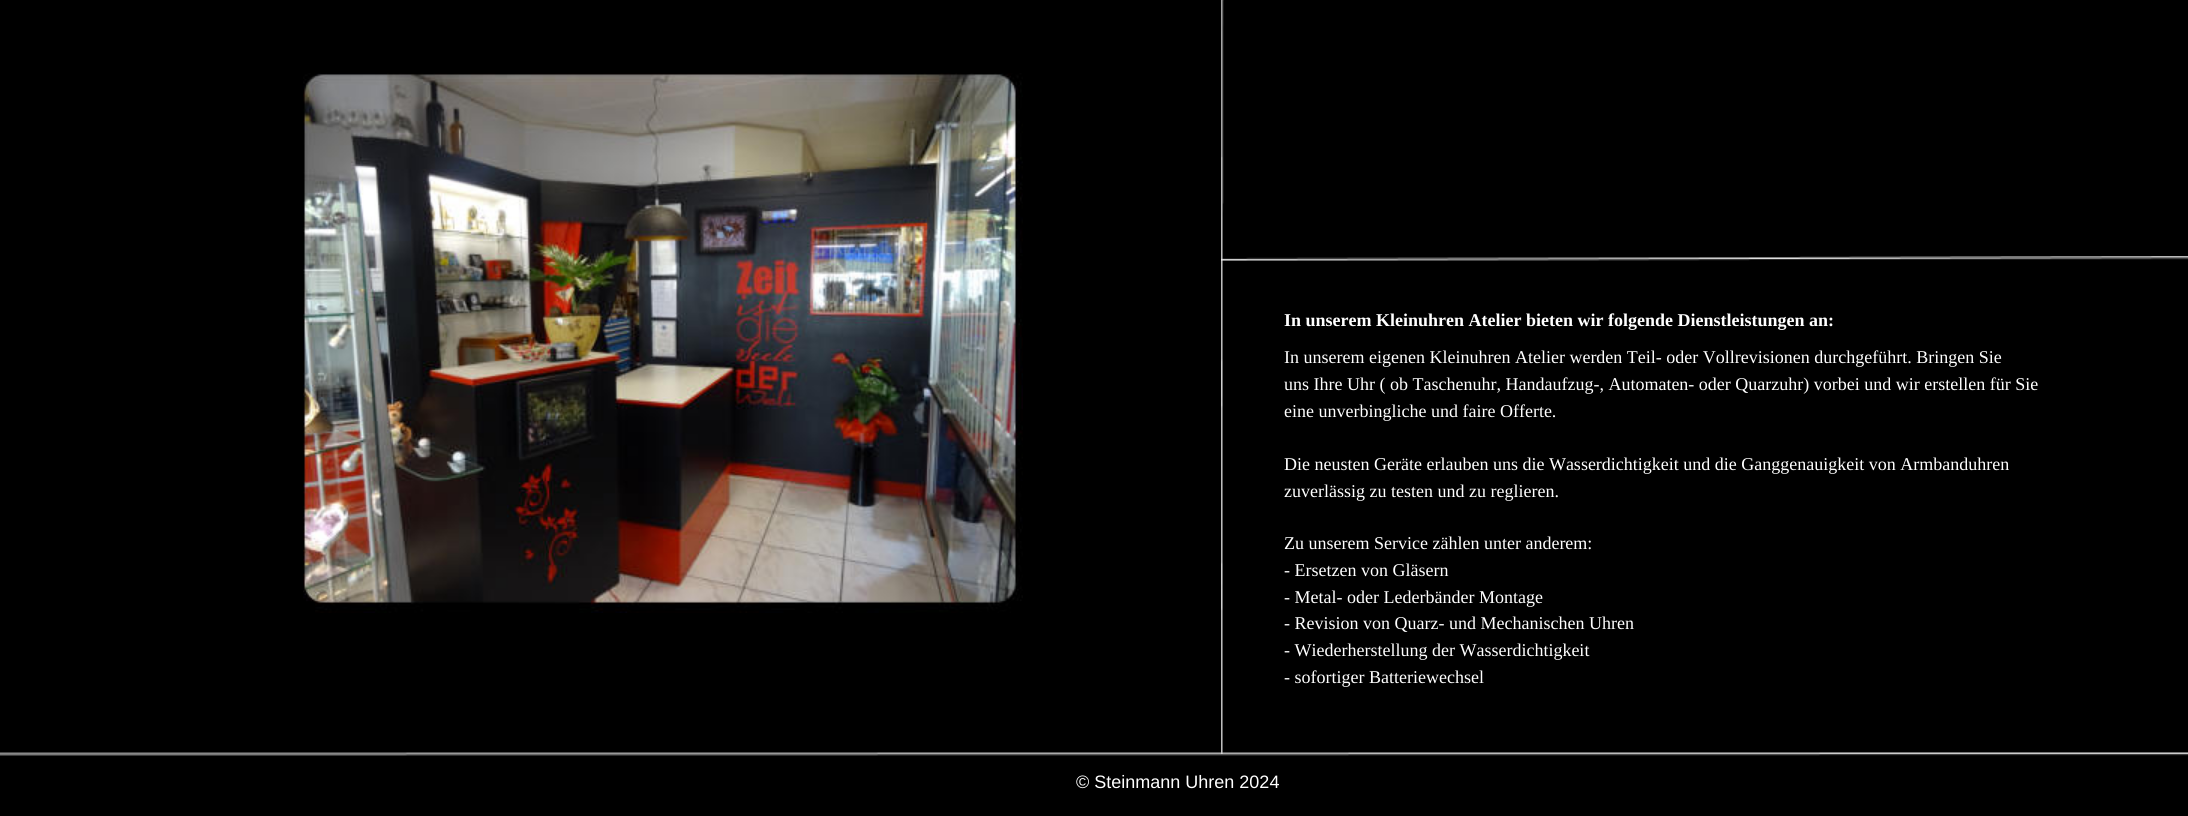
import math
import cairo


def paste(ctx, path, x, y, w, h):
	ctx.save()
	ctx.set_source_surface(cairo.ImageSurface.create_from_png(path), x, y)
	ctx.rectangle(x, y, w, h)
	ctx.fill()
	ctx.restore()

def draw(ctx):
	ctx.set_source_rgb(0, 0, 0)
	ctx.paint()
	paste(ctx, 'media/1.png', 303, 73, 720, 540)
	paste(ctx, 'media/2.png', 1221, 0, 3, 754)
	paste(ctx, 'media/3.png', 1221, 256, 967, 5)
	ctx.select_font_face('Liberation Serif', cairo.FONT_SLANT_NORMAL, cairo.FONT_WEIGHT_BOLD)
	ctx.set_font_size(18)
	ctx.set_source_rgb(1, 1, 1)
	ctx.move_to(1284, 326)
	ctx.show_text('In unserem Kleinuhren Atelier bieten wir folgende Dienstleistungen an:')
	ctx.select_font_face('Liberation Serif')
	for x, y, s in [
		(1284, 363, 'In unserem eigenen Kleinuhren Atelier werden Teil- oder Vollrevisionen durchgeführt. Bringen Sie'),
		(1284, 390, 'uns Ihre Uhr ( ob Taschenuhr, Handaufzug-, Automaten- oder Quarzuhr) vorbei und wir erstellen für Sie'),
		(1284, 417, 'eine unverbingliche und faire Offerte.'),
		(1284, 470, 'Die neusten Geräte erlauben uns die Wasserdichtigkeit und die Ganggenauigkeit von Armbanduhren'),
		(1284, 497, 'zuverlässig zu testen und zu reglieren.'),
		(1284, 549, 'Zu unserem Service zählen unter anderem:'),
		(1284, 576, '- Ersetzen von Gläsern'),
		(1284, 603, '- Metal- oder Lederbänder Montage'),
		(1284, 629, '- Revision von Quarz- und Mechanischen Uhren'),
		(1284, 656, '- Wiederherstellung der Wasserdichtigkeit'),
		(1284, 683, '- sofortiger Batteriewechsel'),
	]:
		ctx.move_to(x, y)
		ctx.show_text(s)
	paste(ctx, 'media/4.png', 0, 752, 2188, 4)
	ctx.select_font_face('Liberation Sans')
	ctx.move_to(1076, 788)
	ctx.show_text('© Steinmann Uhren 2024')


surface = cairo.ImageSurface(cairo.FORMAT_RGB24, 2188, 816)
ctx = cairo.Context(surface)
options = cairo.FontOptions()
options.set_hint_metrics(cairo.HINT_METRICS_OFF)
options.set_hint_style(cairo.HINT_STYLE_NONE)
ctx.set_font_options(options)
ctx.set_miter_limit(4)
draw(ctx)
surface.write_to_png('image.png')
